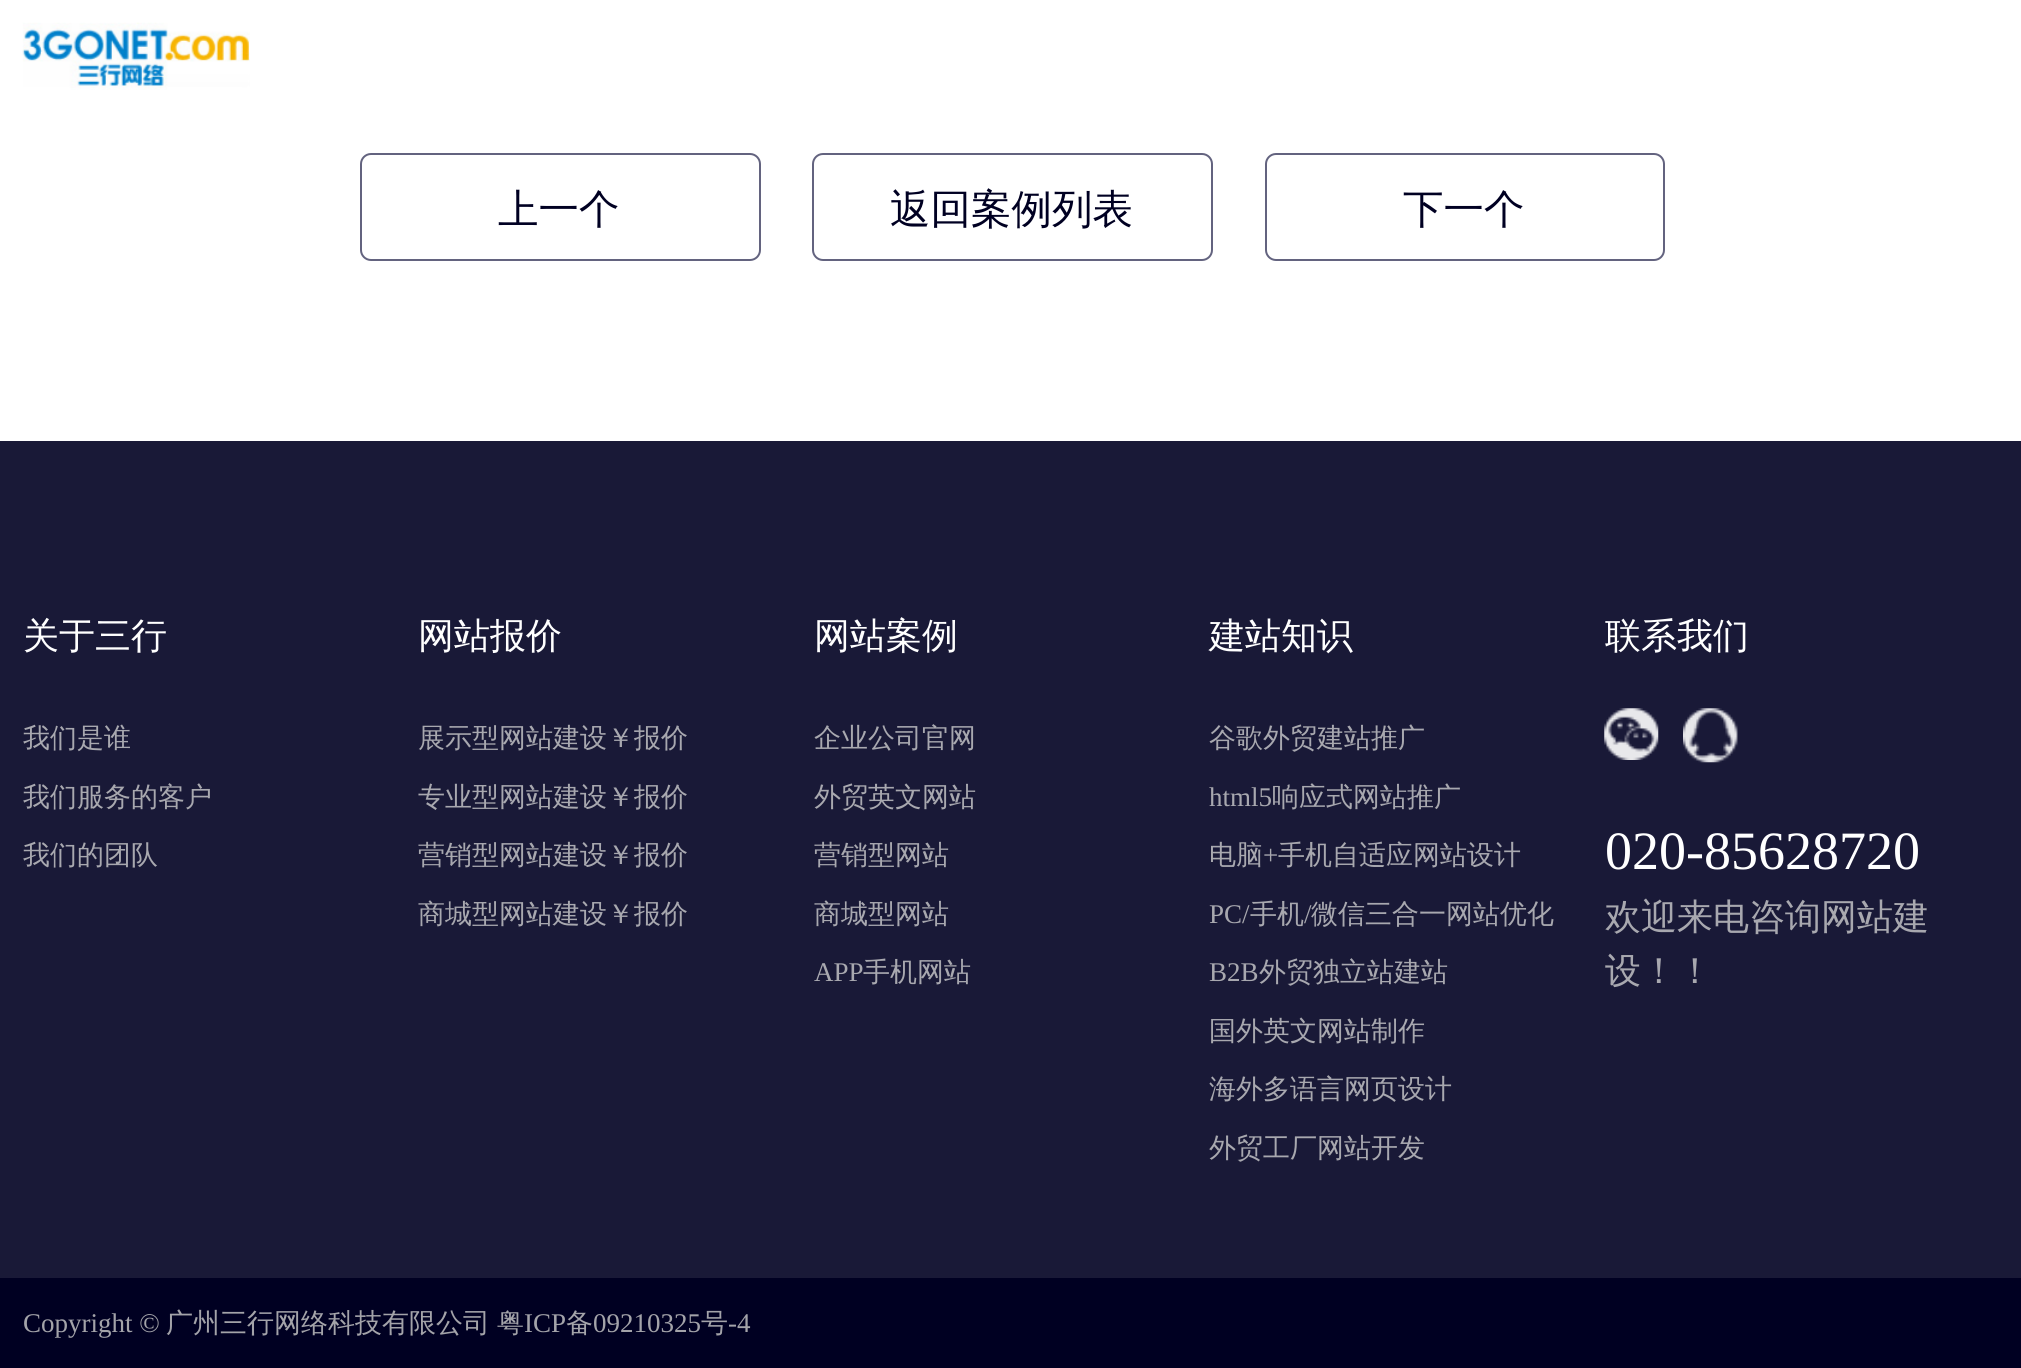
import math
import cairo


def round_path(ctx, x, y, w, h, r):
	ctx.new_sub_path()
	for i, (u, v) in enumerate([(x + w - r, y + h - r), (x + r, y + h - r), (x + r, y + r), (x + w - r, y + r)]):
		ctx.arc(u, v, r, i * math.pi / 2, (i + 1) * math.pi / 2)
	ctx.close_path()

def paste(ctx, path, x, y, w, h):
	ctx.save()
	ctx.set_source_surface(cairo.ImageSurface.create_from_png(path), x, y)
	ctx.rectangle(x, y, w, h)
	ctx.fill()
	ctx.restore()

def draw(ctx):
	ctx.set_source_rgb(1, 1, 1)
	ctx.paint()
	paste(ctx, 'media/1.png', 22, 22, 228, 68)
	round_path(ctx, 361, 154, 399, 106, 10)
	ctx.set_source_rgb(0.388, 0.388, 0.498)
	ctx.stroke()
	ctx.select_font_face('WenQuanYi Zen Hei Medium')
	ctx.set_font_size(40.5)
	ctx.set_source_rgb(0, 0, 0.133)
	ctx.move_to(498, 223)
	ctx.show_text('上一个')
	round_path(ctx, 813, 154, 399, 106, 10)
	ctx.set_source_rgb(0.388, 0.388, 0.498)
	ctx.stroke()
	ctx.set_source_rgb(0, 0, 0.133)
	ctx.move_to(890, 223)
	ctx.show_text('返回案例列表')
	round_path(ctx, 1266, 154, 398, 106, 10)
	ctx.set_source_rgb(0.388, 0.388, 0.498)
	ctx.stroke()
	ctx.set_source_rgb(0, 0, 0.133)
	ctx.move_to(1403, 223)
	ctx.show_text('下一个')
	ctx.set_source_rgb(0.098, 0.098, 0.216)
	ctx.rectangle(0, 441, 2021, 837)
	ctx.fill()
	ctx.set_font_size(36)
	ctx.set_source_rgb(1, 1, 1)
	ctx.move_to(23, 648)
	ctx.show_text('关于三行')
	ctx.set_font_size(27)
	ctx.set_source_rgb(0.659, 0.659, 0.686)
	for x, y, s in [
		(23, 747, '我们是谁'),
		(23, 806, '我们服务的客户'),
		(23, 864, '我们的团队'),
	]:
		ctx.move_to(x, y)
		ctx.show_text(s)
	ctx.set_font_size(36)
	ctx.set_source_rgb(1, 1, 1)
	ctx.move_to(418, 648)
	ctx.show_text('网站报价')
	ctx.set_font_size(27)
	ctx.set_source_rgb(0.659, 0.659, 0.686)
	for x, y, s in [
		(418, 747, '展示型网站建设￥报价'),
		(418, 806, '专业型网站建设￥报价'),
		(418, 864, '营销型网站建设￥报价'),
		(418, 923, '商城型网站建设￥报价'),
	]:
		ctx.move_to(x, y)
		ctx.show_text(s)
	ctx.set_font_size(36)
	ctx.set_source_rgb(1, 1, 1)
	ctx.move_to(814, 648)
	ctx.show_text('网站案例')
	ctx.set_font_size(27)
	ctx.set_source_rgb(0.659, 0.659, 0.686)
	for x, y, s in [
		(814, 747, '企业公司官网'),
		(814, 806, '外贸英文网站'),
		(814, 864, '营销型网站'),
		(814, 923, '商城型网站'),
	]:
		ctx.move_to(x, y)
		ctx.show_text(s)
	ctx.select_font_face('Liberation Serif')
	ctx.move_to(814, 981)
	ctx.show_text('APP')
	ctx.select_font_face('WenQuanYi Zen Hei Medium')
	ctx.move_to(863, 981)
	ctx.show_text('手机网站')
	ctx.set_font_size(36)
	ctx.set_source_rgb(1, 1, 1)
	ctx.move_to(1209, 648)
	ctx.show_text('建站知识')
	ctx.set_font_size(27)
	ctx.set_source_rgb(0.659, 0.659, 0.686)
	ctx.move_to(1209, 747)
	ctx.show_text('谷歌外贸建站推广')
	ctx.select_font_face('Liberation Serif')
	ctx.move_to(1209, 806)
	ctx.show_text('html5')
	ctx.select_font_face('WenQuanYi Zen Hei Medium')
	ctx.move_to(1272, 806)
	ctx.show_text('响应式网站推广')
	ctx.move_to(1209, 864)
	ctx.show_text('电脑')
	ctx.select_font_face('Liberation Serif')
	ctx.move_to(1263, 864)
	ctx.show_text('+')
	ctx.select_font_face('WenQuanYi Zen Hei Medium')
	ctx.move_to(1278, 864)
	ctx.show_text('手机自适应网站设计')
	ctx.select_font_face('Liberation Serif')
	ctx.move_to(1209, 923)
	ctx.show_text('PC/')
	ctx.select_font_face('WenQuanYi Zen Hei Medium')
	ctx.move_to(1250, 923)
	ctx.show_text('手机')
	ctx.select_font_face('Liberation Serif')
	ctx.move_to(1304, 923)
	ctx.show_text('/')
	ctx.select_font_face('WenQuanYi Zen Hei Medium')
	ctx.move_to(1311, 923)
	ctx.show_text('微信三合一网站优化')
	ctx.select_font_face('Liberation Serif')
	ctx.move_to(1209, 981)
	ctx.show_text('B2B')
	ctx.select_font_face('WenQuanYi Zen Hei Medium')
	for x, y, s in [
		(1259, 981, '外贸独立站建站'),
		(1209, 1040, '国外英文网站制作'),
		(1209, 1098, '海外多语言网页设计'),
		(1209, 1157, '外贸工厂网站开发'),
	]:
		ctx.move_to(x, y)
		ctx.show_text(s)
	ctx.set_font_size(36)
	ctx.set_source_rgb(1, 1, 1)
	ctx.move_to(1605, 648)
	ctx.show_text('联系我们')
	paste(ctx, 'media/2.png', 1604, 708, 55, 52)
	paste(ctx, 'media/3.png', 1683, 708, 55, 55)
	ctx.select_font_face('Liberation Serif')
	ctx.set_font_size(54)
	ctx.move_to(1605, 869)
	ctx.show_text('020-85628720')
	ctx.select_font_face('WenQuanYi Zen Hei Medium')
	ctx.set_font_size(36)
	ctx.set_source_rgb(0.659, 0.659, 0.686)
	ctx.move_to(1605, 929)
	ctx.show_text('欢迎来电咨询网站建')
	ctx.move_to(1605, 983)
	ctx.show_text('设！！')
	ctx.set_source_rgb(0, 0, 0.133)
	ctx.rectangle(0, 1278, 2021, 90)
	ctx.fill()
	ctx.select_font_face('Liberation Serif')
	ctx.set_font_size(27)
	ctx.set_source_rgb(0.639, 0.639, 0.663)
	ctx.move_to(23, 1332)
	ctx.show_text('Copyright ©')
	ctx.select_font_face('WenQuanYi Zen Hei Medium')
	ctx.move_to(166, 1332)
	ctx.show_text('广州三行网络科技有限公司')
	ctx.move_to(497, 1332)
	ctx.show_text('粤')
	ctx.select_font_face('Liberation Serif')
	ctx.move_to(524, 1332)
	ctx.show_text('ICP')
	ctx.select_font_face('WenQuanYi Zen Hei Medium')
	ctx.move_to(566, 1332)
	ctx.show_text('备')
	ctx.select_font_face('Liberation Serif')
	ctx.move_to(593, 1332)
	ctx.show_text('09210325')
	ctx.select_font_face('WenQuanYi Zen Hei Medium')
	ctx.move_to(701, 1332)
	ctx.show_text('号')
	ctx.select_font_face('Liberation Serif')
	ctx.move_to(728, 1332)
	ctx.show_text('-4')


surface = cairo.ImageSurface(cairo.FORMAT_RGB24, 2021, 1368)
ctx = cairo.Context(surface)
options = cairo.FontOptions()
options.set_hint_metrics(cairo.HINT_METRICS_OFF)
options.set_hint_style(cairo.HINT_STYLE_NONE)
ctx.set_font_options(options)
ctx.set_miter_limit(4)
draw(ctx)
surface.write_to_png('image.png')
